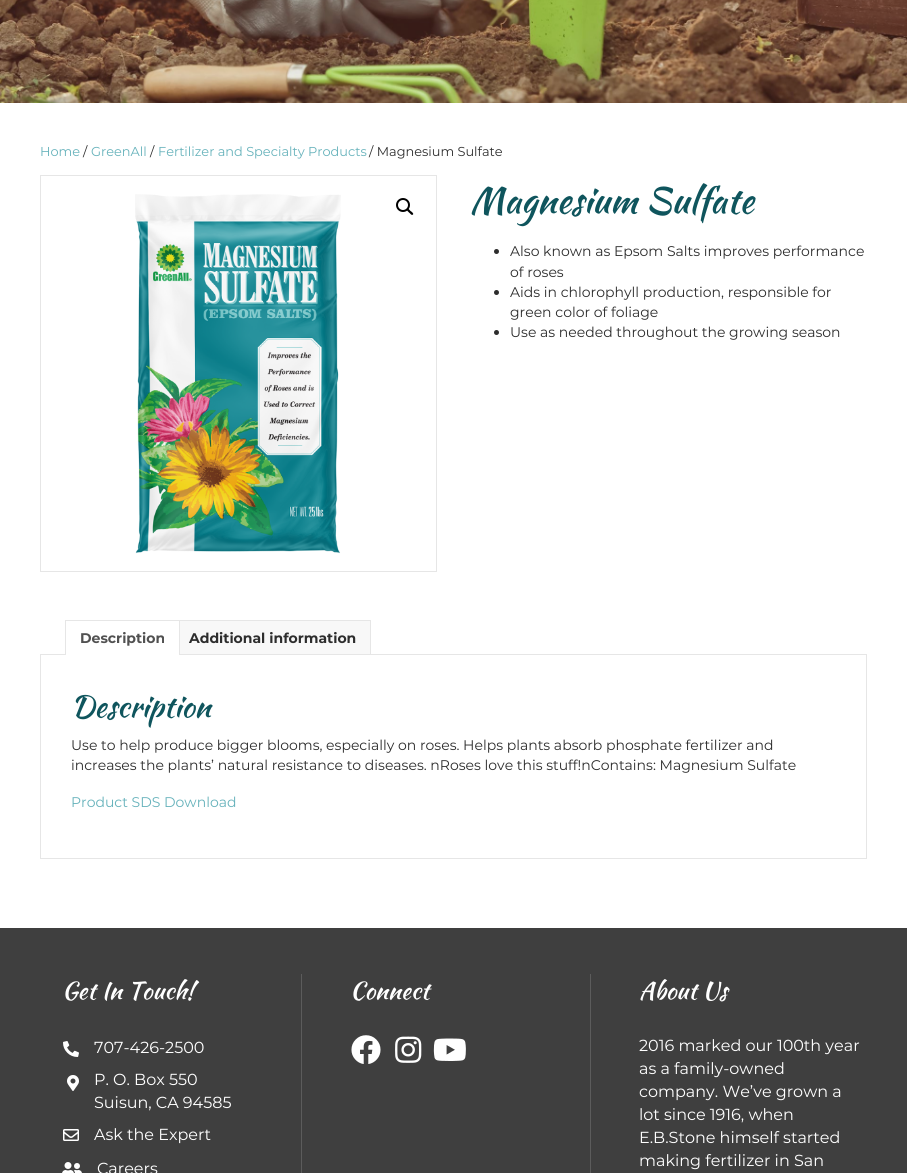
import math
import cairo


def paste(ctx, path, x, y, w, h):
	ctx.save()
	ctx.set_source_surface(cairo.ImageSurface.create_from_png(path), x, y)
	ctx.rectangle(x, y, w, h)
	ctx.fill()
	ctx.restore()

def draw(ctx):
	ctx.set_source_rgb(1, 1, 1)
	ctx.paint()
	paste(ctx, 'media/1.png', 0, 0, 907, 103)
	ctx.select_font_face('Montserrat')
	ctx.set_font_size(12.9)
	ctx.set_source_rgb(0.4, 0.698, 0.733)
	ctx.move_to(40, 156)
	ctx.show_text('Home')
	ctx.set_source_rgb(0.176, 0.176, 0.176)
	ctx.move_to(83, 156)
	ctx.show_text('/')
	ctx.set_source_rgb(0.4, 0.698, 0.733)
	ctx.move_to(91, 156)
	ctx.show_text('GreenAll')
	ctx.set_source_rgb(0.176, 0.176, 0.176)
	ctx.move_to(150, 156)
	ctx.show_text('/')
	ctx.set_source_rgb(0.4, 0.698, 0.733)
	ctx.move_to(158, 156)
	ctx.show_text('Fertilizer and Specialty Products')
	ctx.set_source_rgb(0.176, 0.176, 0.176)
	ctx.move_to(369, 156)
	ctx.show_text('/ Magnesium Sulfate')
	ctx.rectangle(40.5, 175.5, 396, 396)
	ctx.set_source_rgb(0.902, 0.902, 0.902)
	ctx.set_line_width(1)
	ctx.stroke()
	paste(ctx, 'media/2.png', 135, 194, 206, 360)
	ctx.arc(403, 205, 6, 0, 2 * math.pi)
	ctx.set_source_rgb(0, 0, 0)
	ctx.set_line_width(2)
	ctx.stroke()
	ctx.new_path()
	ctx.move_to(407, 209)
	ctx.curve_to(408.5, 208, 410, 210.5, 410.5, 211)
	ctx.curve_to(411.5, 211.5, 414, 213.5, 413, 214.5)
	ctx.curve_to(411.5, 216, 410, 213, 409, 212.5)
	ctx.curve_to(408.5, 212, 406, 210, 407, 209)
	ctx.close_path()
	ctx.fill()
	ctx.select_font_face('Kaushan Script')
	ctx.set_font_size(36)
	ctx.set_source_rgb(0.059, 0.333, 0.365)
	ctx.move_to(470, 213)
	ctx.show_text('Magnesium Sulfate')
	ctx.set_source_rgb(0.176, 0.176, 0.176)
	ctx.new_path()
	ctx.arc(496.5, 251.5, 2.5, 0, 2 * math.pi)
	ctx.fill()
	ctx.select_font_face('Montserrat')
	ctx.set_font_size(14)
	ctx.move_to(510, 256)
	ctx.show_text('Also known as Epsom Salts improves performance')
	ctx.move_to(510, 277)
	ctx.show_text('of roses')
	ctx.new_path()
	ctx.arc(496.5, 292.5, 2.5, 0, 2 * math.pi)
	ctx.fill()
	ctx.move_to(510, 297)
	ctx.show_text('Aids in chlorophyll production, responsible for')
	ctx.move_to(510, 317)
	ctx.show_text('green color of foliage')
	ctx.new_path()
	ctx.arc(496.5, 332.5, 2.5, 0, 2 * math.pi)
	ctx.fill()
	ctx.move_to(510, 337)
	ctx.show_text('Use as needed throughout the growing season')
	ctx.set_source_rgb(0.902, 0.902, 0.902)
	ctx.rectangle(65, 620, 306, 1)
	ctx.rectangle(370, 620, 1, 35)
	ctx.rectangle(40, 654, 827, 1)
	ctx.fill()
	ctx.set_source_rgb(1, 1, 1)
	ctx.rectangle(66, 654, 113, 1)
	ctx.fill()
	ctx.set_source_rgb(0.902, 0.902, 0.902)
	ctx.rectangle(179, 620, 1, 35)
	ctx.rectangle(65, 620, 1, 35)
	ctx.fill()
	ctx.select_font_face('Montserrat', cairo.FONT_SLANT_NORMAL, cairo.FONT_WEIGHT_BOLD)
	ctx.set_source_rgb(0.318, 0.318, 0.318)
	ctx.move_to(80, 643)
	ctx.show_text('Description')
	ctx.set_source_rgb(0.969, 0.969, 0.969)
	ctx.rectangle(180, 621, 190, 33)
	ctx.fill()
	ctx.set_source_rgb(0.176, 0.176, 0.176)
	ctx.move_to(189, 643)
	ctx.show_text('Additional information')
	ctx.set_source_rgb(0.902, 0.902, 0.902)
	ctx.rectangle(866, 655, 1, 204)
	ctx.rectangle(40, 858, 827, 1)
	ctx.rectangle(40, 655, 1, 204)
	ctx.fill()
	ctx.select_font_face('Kaushan Script')
	ctx.set_font_size(30)
	ctx.set_source_rgb(0.059, 0.333, 0.365)
	ctx.move_to(71, 717)
	ctx.show_text('Description')
	ctx.select_font_face('Montserrat')
	ctx.set_font_size(14)
	ctx.set_source_rgb(0.176, 0.176, 0.176)
	ctx.move_to(71, 750)
	ctx.show_text('Use to help produce bigger blooms, especially on roses. Helps plants absorb phosphate fertilizer and')
	ctx.move_to(71, 770)
	ctx.show_text('increases the plants’ natural resistance to diseases. nRoses love this stuff!nContains: Magnesium Sulfate')
	ctx.set_source_rgb(0.4, 0.698, 0.733)
	ctx.move_to(71, 807)
	ctx.show_text('Product SDS Download')
	ctx.set_source_rgb(0.247, 0.247, 0.247)
	ctx.rectangle(0, 928, 907, 245)
	ctx.fill()
	ctx.set_source_rgb(0.361, 0.361, 0.361)
	ctx.rectangle(301, 974, 1, 199)
	ctx.fill()
	ctx.select_font_face('Kaushan Script')
	ctx.set_font_size(24)
	ctx.set_source_rgb(1, 1, 1)
	ctx.move_to(62, 999)
	ctx.show_text('Get In Touch!')
	paste(ctx, 'media/3.png', 63, 1041, 16, 16)
	ctx.select_font_face('Montserrat')
	ctx.set_font_size(16)
	ctx.move_to(94, 1053)
	ctx.show_text('707-426-2500')
	paste(ctx, 'media/4.png', 67, 1075, 12, 16)
	ctx.move_to(94, 1085)
	ctx.show_text('P. O. Box 550')
	ctx.move_to(94, 1108)
	ctx.show_text('Suisun, CA 94585')
	paste(ctx, 'media/5.png', 63, 1129, 16, 12)
	ctx.move_to(94, 1140)
	ctx.show_text('Ask the Expert')
	paste(ctx, 'media/6.png', 62, 1162, 20, 11)
	ctx.move_to(97, 1174)
	ctx.show_text('Careers')
	ctx.set_source_rgb(0.361, 0.361, 0.361)
	ctx.rectangle(590, 974, 1, 199)
	ctx.fill()
	ctx.select_font_face('Kaushan Script')
	ctx.set_font_size(24)
	ctx.set_source_rgb(1, 1, 1)
	ctx.move_to(350, 999)
	ctx.show_text('Connect')
	paste(ctx, 'media/7.png', 351, 1035, 30, 29)
	paste(ctx, 'media/8.png', 395, 1036, 27, 27)
	paste(ctx, 'media/9.png', 433, 1038, 33, 23)
	ctx.move_to(639, 999)
	ctx.show_text('About Us')
	ctx.select_font_face('Montserrat')
	ctx.set_font_size(16)
	for x, y, s in [
		(639, 1051, '2016 marked our 100th year'),
		(639, 1074, 'as a family-owned'),
		(639, 1097, 'company. We’ve grown a'),
		(639, 1120, 'lot since 1916, when'),
		(639, 1143, 'E.B.Stone himself started'),
		(639, 1166, 'making fertilizer in San'),
	]:
		ctx.move_to(x, y)
		ctx.show_text(s)


surface = cairo.ImageSurface(cairo.FORMAT_RGB24, 907, 1173)
ctx = cairo.Context(surface)
options = cairo.FontOptions()
options.set_hint_metrics(cairo.HINT_METRICS_OFF)
options.set_hint_style(cairo.HINT_STYLE_NONE)
ctx.set_font_options(options)
ctx.set_miter_limit(4)
draw(ctx)
surface.write_to_png('image.png')
